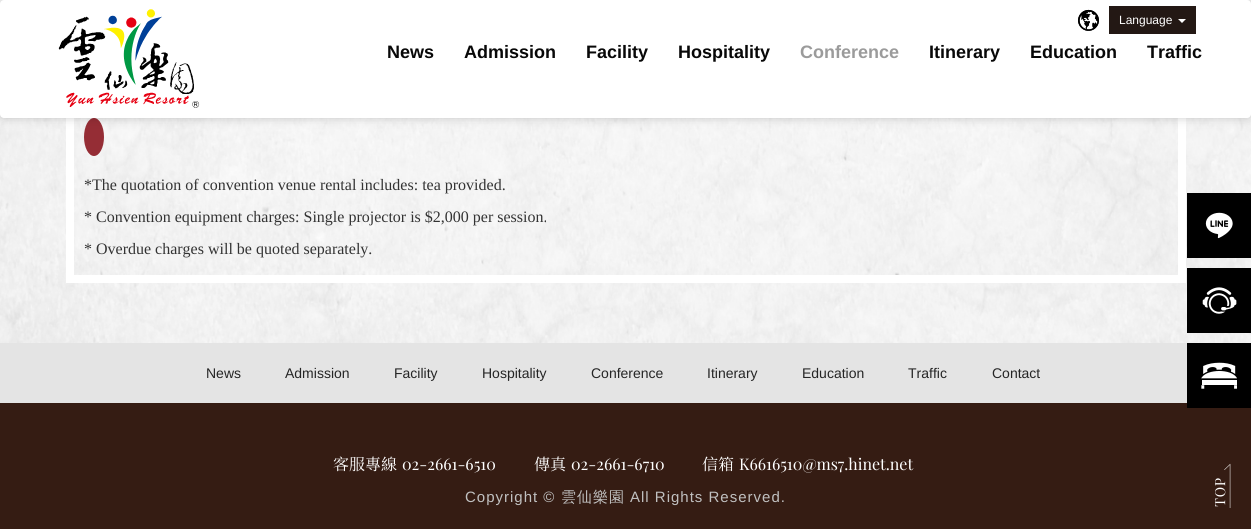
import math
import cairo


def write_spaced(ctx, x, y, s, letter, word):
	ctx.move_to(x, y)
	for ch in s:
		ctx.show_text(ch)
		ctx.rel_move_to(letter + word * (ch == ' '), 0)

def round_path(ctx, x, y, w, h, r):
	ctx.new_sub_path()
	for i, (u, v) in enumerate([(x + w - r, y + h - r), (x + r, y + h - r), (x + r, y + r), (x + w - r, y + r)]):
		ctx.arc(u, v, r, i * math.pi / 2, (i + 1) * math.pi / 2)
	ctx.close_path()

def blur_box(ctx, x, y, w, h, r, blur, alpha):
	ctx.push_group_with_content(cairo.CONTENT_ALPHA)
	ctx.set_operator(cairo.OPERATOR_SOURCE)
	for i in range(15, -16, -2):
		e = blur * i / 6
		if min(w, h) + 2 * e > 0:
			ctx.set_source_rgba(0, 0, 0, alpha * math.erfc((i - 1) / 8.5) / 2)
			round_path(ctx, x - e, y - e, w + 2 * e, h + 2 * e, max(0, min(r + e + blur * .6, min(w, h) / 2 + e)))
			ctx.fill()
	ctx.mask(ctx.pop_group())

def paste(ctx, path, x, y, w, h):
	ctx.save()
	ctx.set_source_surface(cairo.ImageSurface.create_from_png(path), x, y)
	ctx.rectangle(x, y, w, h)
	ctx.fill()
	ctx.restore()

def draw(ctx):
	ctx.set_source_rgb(0.894, 0.894, 0.894)
	ctx.paint()
	paste(ctx, 'media/3.png', 0, 0, 1251, 343)
	ctx.set_source_rgb(1, 1, 1)
	ctx.rectangle(1178, 118, 8, 165)
	ctx.rectangle(66, 275, 1120, 8)
	ctx.rectangle(66, 118, 8, 165)
	ctx.fill()
	ctx.set_source_rgb(0.584, 0.176, 0.208)
	ctx.new_path()
	ctx.move_to(94, 118)
	ctx.curve_to(99.5, 118, 104, 126.5, 104, 137)
	ctx.curve_to(104, 147.5, 99.5, 156, 94, 156)
	ctx.curve_to(88.5, 156, 84, 147.5, 84, 137)
	ctx.curve_to(84, 126.5, 88.5, 118, 94, 118)
	ctx.close_path()
	ctx.fill()
	ctx.set_source_rgb(0, 0, 0)
	blur_box(ctx, 0, 0, 1251, 118, 4, 5, 0.2)
	ctx.set_source_rgb(1, 1, 1)
	round_path(ctx, 0, 0, 1251, 118, 4)
	ctx.fill()
	paste(ctx, 'media/1.png', 58, 9, 142, 99)
	ctx.set_source_rgb(0.137, 0.094, 0.082)
	ctx.rectangle(1109, 6, 87, 28)
	ctx.fill()
	paste(ctx, 'media/2.png', 1078, 9, 21, 22)
	ctx.select_font_face('Liberation Sans')
	ctx.set_font_size(12)
	ctx.set_source_rgb(1, 1, 1)
	ctx.move_to(1119, 24)
	ctx.show_text('Language')
	ctx.new_path()
	ctx.move_to(1178, 19)
	ctx.line_to(1186, 19)
	ctx.line_to(1182, 23)
	ctx.close_path()
	ctx.fill()
	ctx.select_font_face('Liberation Sans', cairo.FONT_SLANT_NORMAL, cairo.FONT_WEIGHT_BOLD)
	ctx.set_font_size(18)
	ctx.set_source_rgb(0.035, 0.035, 0.035)
	for x, y, s in [
		(387, 58, 'News'),
		(464, 58, 'Admission'),
		(586, 58, 'Facility'),
		(678, 58, 'Hospitality'),
	]:
		ctx.move_to(x, y)
		ctx.show_text(s)
	ctx.set_source_rgb(0.608, 0.608, 0.608)
	ctx.move_to(800, 58)
	ctx.show_text('Conference')
	ctx.set_source_rgb(0.035, 0.035, 0.035)
	for x, y, s in [
		(929, 58, 'Itinerary'),
		(1030, 58, 'Education'),
		(1147, 58, 'Traffic'),
	]:
		ctx.move_to(x, y)
		ctx.show_text(s)
	ctx.select_font_face('Liberation Serif')
	ctx.set_font_size(16)
	ctx.set_source_rgb(0.2, 0.2, 0.2)
	for x, y, s in [
		(84, 190, '*The quotation of convention venue rental includes: tea provided.'),
		(84, 222, '* Convention equipment charges: Single projector is $2,000 per session.'),
		(84, 254, '* Overdue charges will be quoted separately.'),
	]:
		ctx.move_to(x, y)
		ctx.show_text(s)
	ctx.set_source_rgb(0, 0, 0)
	ctx.rectangle(1187, 193, 64, 65)
	ctx.fill()
	paste(ctx, 'media/4.png', 1205, 212, 28, 27)
	ctx.rectangle(1187, 268, 64, 65)
	ctx.fill()
	paste(ctx, 'media/5.png', 1202, 287, 35, 27)
	ctx.set_source_rgb(0.208, 0.11, 0.075)
	ctx.rectangle(0, 403, 1251, 126)
	ctx.fill()
	ctx.set_source_rgb(0, 0, 0)
	ctx.rectangle(1187, 343, 64, 65)
	ctx.fill()
	paste(ctx, 'media/6.png', 1201, 362, 36, 27)
	ctx.select_font_face('Liberation Sans')
	ctx.set_font_size(14)
	ctx.set_source_rgb(0.145, 0.145, 0.145)
	for x, y, s in [
		(206, 378, 'News'),
		(285, 378, 'Admission'),
		(394, 378, 'Facility'),
		(482, 378, 'Hospitality'),
		(591, 378, 'Conference'),
		(707, 378, 'Itinerary'),
		(802, 378, 'Education'),
		(908, 378, 'Traffic'),
		(992, 378, 'Contact'),
	]:
		ctx.move_to(x, y)
		ctx.show_text(s)
	ctx.select_font_face('Noto Serif TC')
	ctx.set_font_size(16)
	ctx.set_source_rgb(1, 1, 1)
	ctx.move_to(333, 470)
	ctx.show_text('客服專線')
	ctx.select_font_face('Playfair Display')
	ctx.move_to(402, 470)
	ctx.show_text('02-2661-6510')
	ctx.select_font_face('Noto Serif TC')
	ctx.move_to(534, 470)
	ctx.show_text('傳真')
	ctx.select_font_face('Playfair Display')
	ctx.move_to(571, 470)
	ctx.show_text('02-2661-6710')
	ctx.select_font_face('Noto Serif TC')
	ctx.move_to(702, 470)
	ctx.show_text('信箱')
	ctx.select_font_face('Playfair Display')
	ctx.move_to(739, 470)
	ctx.show_text('K6616510@ms7.hinet.net')
	ctx.select_font_face('Liberation Sans')
	ctx.set_font_size(15)
	ctx.set_source_rgb(0.753, 0.753, 0.753)
	write_spaced(ctx, 465, 502, 'Copyright ©', 1, 0)
	ctx.select_font_face('WenQuanYi Zen Hei Medium')
	write_spaced(ctx, 561, 502, '雲仙樂園', 1, 0)
	ctx.select_font_face('Liberation Sans')
	write_spaced(ctx, 630, 502, 'All Rights Reserved.', 1, 0)
	paste(ctx, 'media/7.png', 1215, 463, 16, 45)


surface = cairo.ImageSurface(cairo.FORMAT_RGB24, 1251, 529)
ctx = cairo.Context(surface)
options = cairo.FontOptions()
options.set_hint_metrics(cairo.HINT_METRICS_OFF)
options.set_hint_style(cairo.HINT_STYLE_NONE)
ctx.set_font_options(options)
ctx.set_miter_limit(4)
draw(ctx)
surface.write_to_png('image.png')
